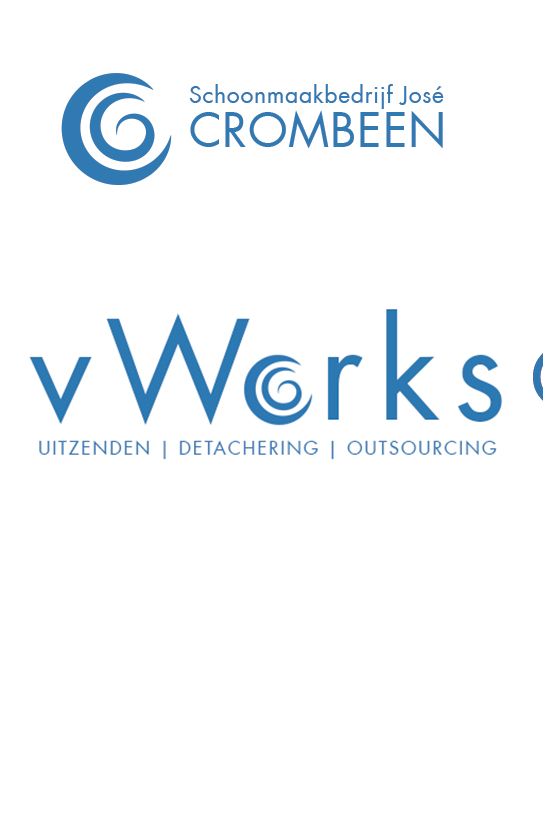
import math
import cairo


def paste(ctx, path, x, y, w, h):
	ctx.save()
	ctx.set_source_surface(cairo.ImageSurface.create_from_png(path), x, y)
	ctx.rectangle(x, y, w, h)
	ctx.fill()
	ctx.restore()

def draw(ctx):
	ctx.set_source_rgb(1, 1, 1)
	ctx.paint()
	paste(ctx, 'media/1.png', 61, 73, 387, 112)
	paste(ctx, 'media/2.png', 29, 309, 474, 151)
	paste(ctx, 'media/3.png', 533, 353, 10, 55)


surface = cairo.ImageSurface(cairo.FORMAT_RGB24, 543, 837)
ctx = cairo.Context(surface)
options = cairo.FontOptions()
options.set_hint_metrics(cairo.HINT_METRICS_OFF)
options.set_hint_style(cairo.HINT_STYLE_NONE)
ctx.set_font_options(options)
ctx.set_miter_limit(4)
draw(ctx)
surface.write_to_png('image.png')
